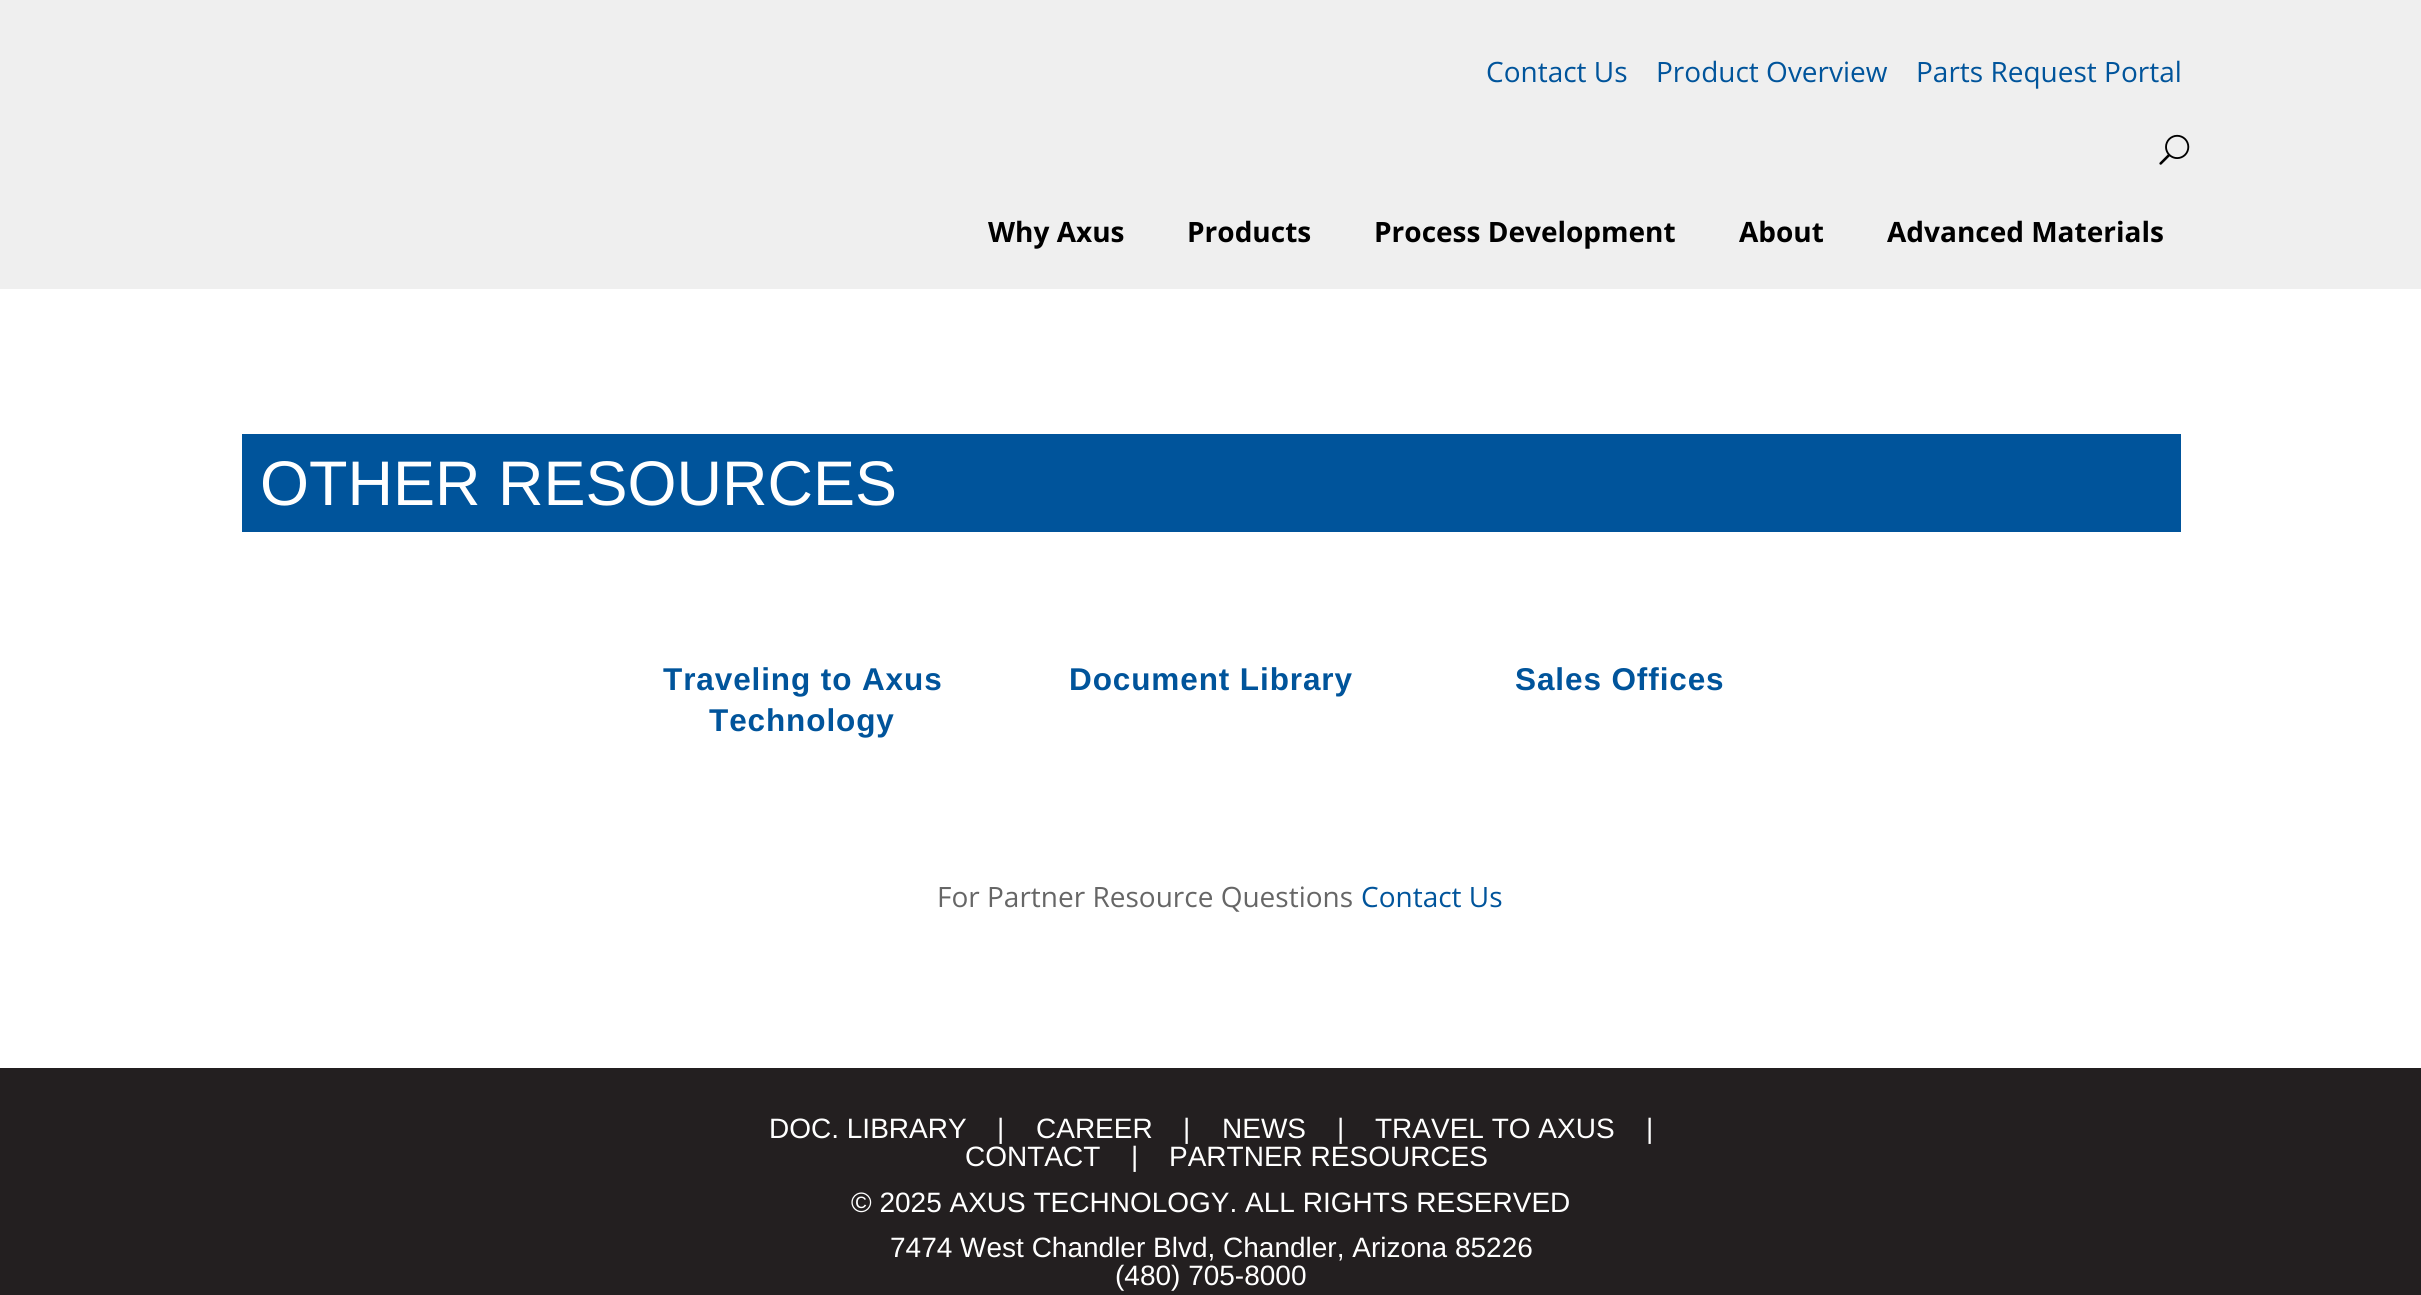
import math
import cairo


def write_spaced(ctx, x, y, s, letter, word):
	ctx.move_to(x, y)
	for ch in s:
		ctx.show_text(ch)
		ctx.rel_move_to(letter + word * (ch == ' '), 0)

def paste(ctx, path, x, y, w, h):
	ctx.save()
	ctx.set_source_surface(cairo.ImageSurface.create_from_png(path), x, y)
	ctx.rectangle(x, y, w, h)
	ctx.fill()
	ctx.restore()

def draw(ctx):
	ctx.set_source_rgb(1, 1, 1)
	ctx.paint()
	ctx.set_source_rgb(0.937, 0.937, 0.937)
	ctx.rectangle(0, 0, 2421, 289)
	ctx.fill()
	ctx.select_font_face('Open Sans')
	ctx.set_font_size(28)
	ctx.set_source_rgb(0, 0.329, 0.608)
	for x, y, s in [
		(1486, 82, 'Contact Us'),
		(1656, 82, 'Product Overview'),
		(1916, 82, 'Parts Request Portal'),
	]:
		ctx.move_to(x, y)
		ctx.show_text(s)
	paste(ctx, 'media/1.png', 2159, 134, 31, 31)
	ctx.select_font_face('Open Sans', cairo.FONT_SLANT_NORMAL, cairo.FONT_WEIGHT_BOLD)
	ctx.set_source_rgb(0, 0, 0)
	for x, y, s in [
		(988, 242, 'Why Axus'),
		(1187, 242, 'Products'),
		(1374, 242, 'Process Development'),
		(1739, 242, 'About'),
		(1887, 242, 'Advanced Materials'),
	]:
		ctx.move_to(x, y)
		ctx.show_text(s)
	ctx.set_source_rgb(0, 0.329, 0.608)
	ctx.rectangle(242, 434, 1939, 98)
	ctx.fill()
	ctx.select_font_face('Liberation Sans')
	ctx.set_font_size(63)
	ctx.set_source_rgb(1, 1, 1)
	ctx.move_to(260, 505)
	ctx.show_text('OTHER RESOURCES')
	ctx.select_font_face('Liberation Sans', cairo.FONT_SLANT_NORMAL, cairo.FONT_WEIGHT_BOLD)
	ctx.set_font_size(31.5)
	ctx.set_source_rgb(0, 0.329, 0.608)
	for x, y, s in [
		(663, 690, 'Traveling to Axus'),
		(709, 731, 'Technology'),
		(1069, 690, 'Document Library'),
		(1515, 690, 'Sales Offices'),
	]:
		write_spaced(ctx, x, y, s, 0.9, 0)
	ctx.select_font_face('Open Sans')
	ctx.set_font_size(28)
	ctx.set_source_rgb(0.4, 0.4, 0.4)
	ctx.move_to(937, 907)
	ctx.show_text('For Partner Resource Questions')
	ctx.set_source_rgb(0, 0.329, 0.608)
	ctx.move_to(1361, 907)
	ctx.show_text('Contact Us')
	ctx.set_source_rgb(0.137, 0.122, 0.125)
	ctx.rectangle(0, 1068, 2421, 227)
	ctx.fill()
	ctx.select_font_face('Liberation Sans')
	ctx.set_source_rgb(1, 1, 1)
	for x, y, s in [
		(769, 1138, 'DOC. LIBRARY'),
		(997, 1138, '|'),
		(1036, 1138, 'CAREER'),
		(1183, 1138, '|'),
		(1222, 1138, 'NEWS'),
		(1337, 1138, '|'),
		(1375, 1138, 'TRAVEL TO AXUS'),
		(1646, 1138, '|'),
		(965, 1166, 'CONTACT'),
		(1131, 1166, '|'),
		(1169, 1166, 'PARTNER RESOURCES'),
		(851, 1212, '© 2025 AXUS TECHNOLOGY. ALL RIGHTS RESERVED'),
		(890, 1257, '7474 West Chandler Blvd, Chandler, Arizona 85226'),
		(1115, 1285, '(480) 705-8000'),
	]:
		ctx.move_to(x, y)
		ctx.show_text(s)


surface = cairo.ImageSurface(cairo.FORMAT_RGB24, 2421, 1295)
ctx = cairo.Context(surface)
options = cairo.FontOptions()
options.set_hint_metrics(cairo.HINT_METRICS_OFF)
options.set_hint_style(cairo.HINT_STYLE_NONE)
ctx.set_font_options(options)
ctx.set_miter_limit(4)
draw(ctx)
surface.write_to_png('image.png')
